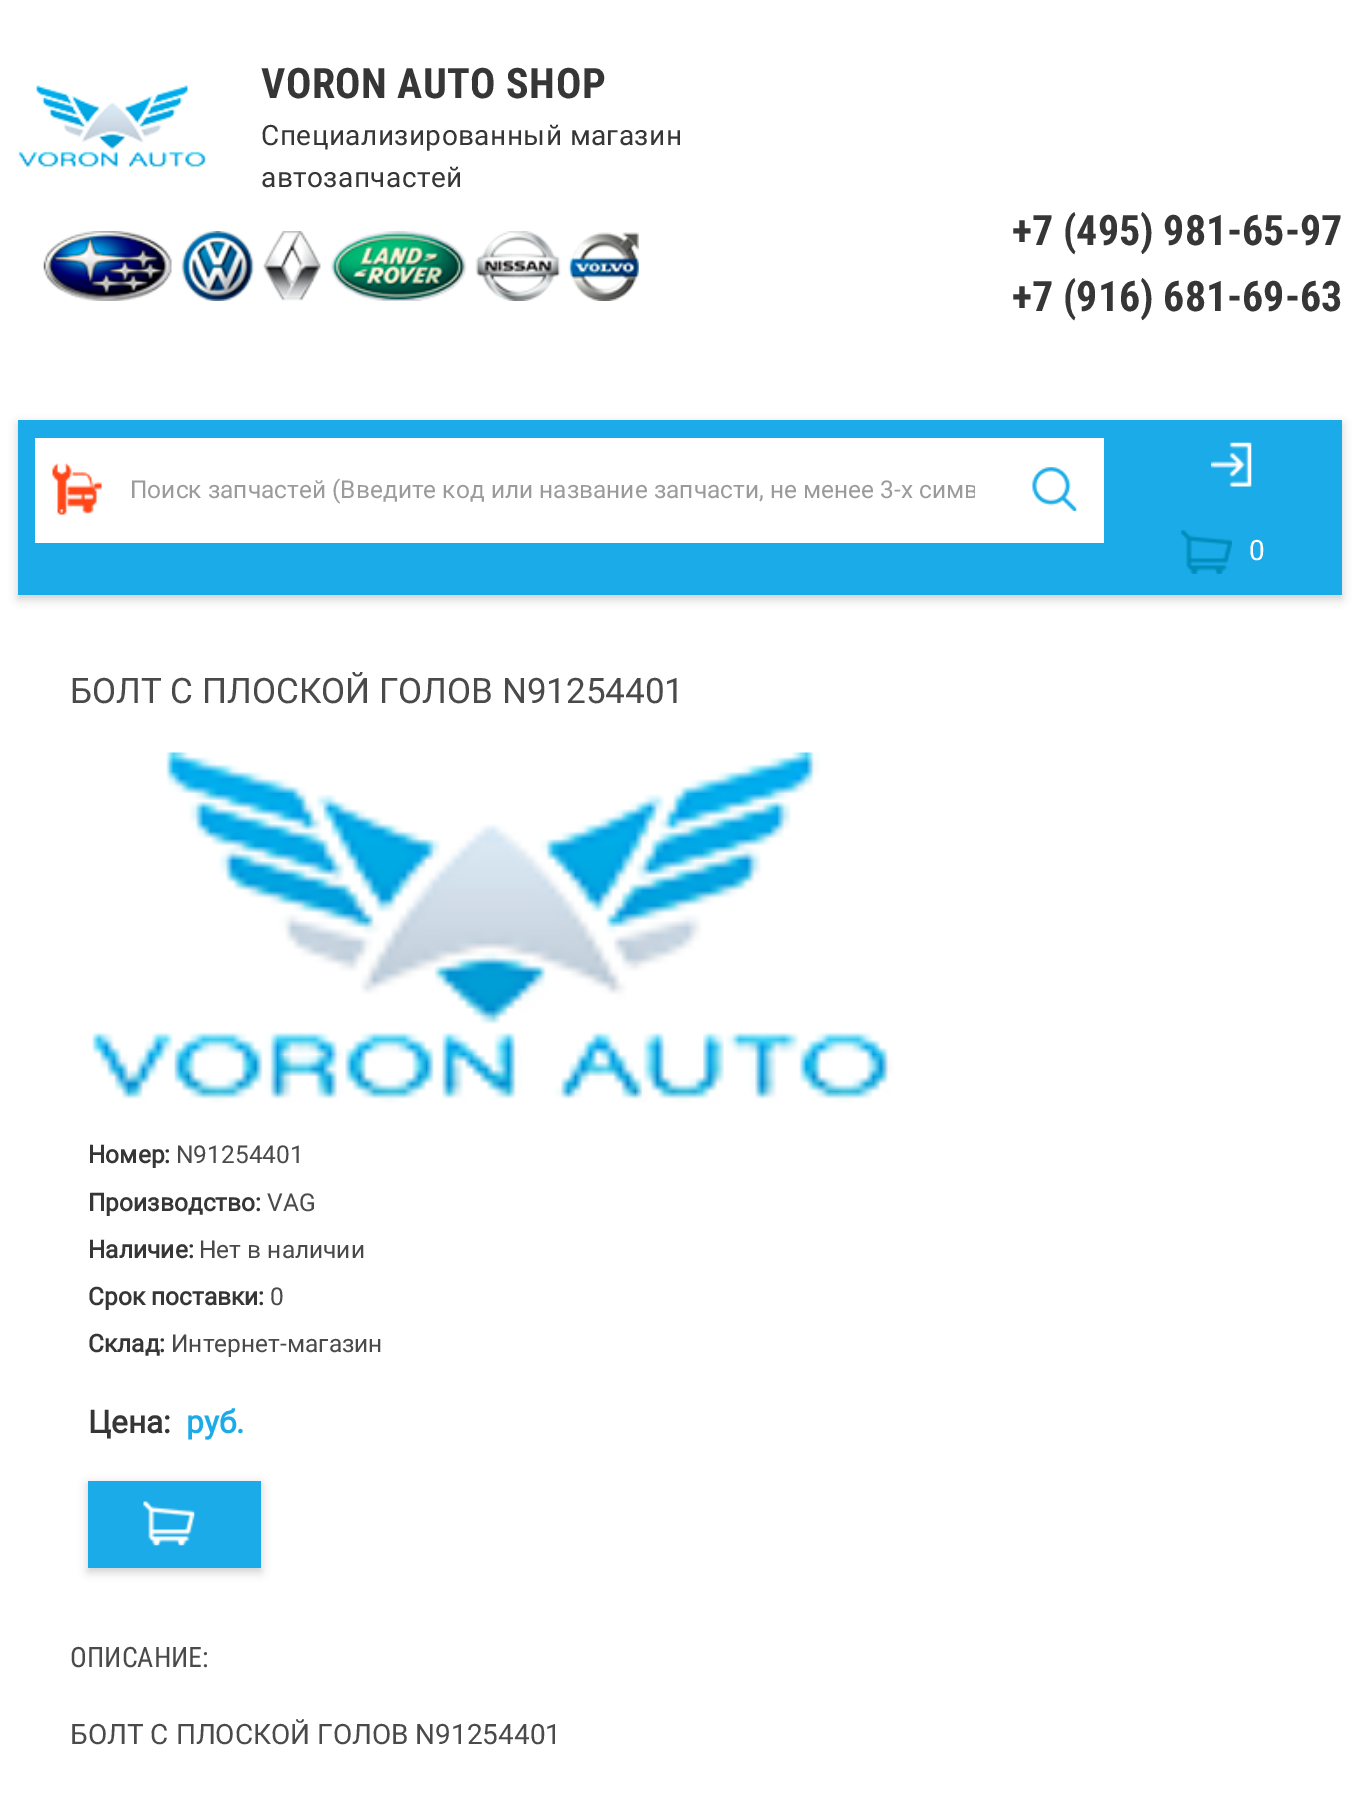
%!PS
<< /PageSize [1359 1803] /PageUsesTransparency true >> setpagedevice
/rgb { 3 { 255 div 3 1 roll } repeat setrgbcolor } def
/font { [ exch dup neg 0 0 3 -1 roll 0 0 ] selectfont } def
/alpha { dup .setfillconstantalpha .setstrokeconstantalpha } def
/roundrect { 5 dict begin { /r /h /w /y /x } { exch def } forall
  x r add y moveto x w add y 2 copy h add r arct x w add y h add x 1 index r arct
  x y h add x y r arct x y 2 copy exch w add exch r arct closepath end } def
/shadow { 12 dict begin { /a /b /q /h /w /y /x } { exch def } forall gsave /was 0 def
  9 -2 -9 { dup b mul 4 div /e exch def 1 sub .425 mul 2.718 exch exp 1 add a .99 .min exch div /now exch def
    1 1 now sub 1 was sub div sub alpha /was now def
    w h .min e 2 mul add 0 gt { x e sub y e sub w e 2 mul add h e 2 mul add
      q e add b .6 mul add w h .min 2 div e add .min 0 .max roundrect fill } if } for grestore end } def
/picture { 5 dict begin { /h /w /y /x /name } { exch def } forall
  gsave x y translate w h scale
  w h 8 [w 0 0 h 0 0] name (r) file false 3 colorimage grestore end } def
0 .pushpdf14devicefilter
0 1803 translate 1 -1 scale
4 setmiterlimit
255 255 255 rgb
0 0 1359 1803 rectfill
(img/1.rgb) 18 85 189 83 picture
(img/2.rgb) 43 231 596 70 picture
0 0 0 rgb
18 424 1324 175 0 4.5 0.19 shadow
28 171 233 rgb
18 420 1324 175 rectfill
255 255 255 rgb
35 438 1069 105 rectfill
(img/3.rgb) 52 463 50 52 picture
(img/4.rgb) 1032 467 45 44 picture
(img/5.rgb) 1211 442 41 45 picture
(img/6.rgb) 1181 530 51 44 picture
(img/7.rgb) 92 752 801 351 picture
0 0 0 rgb
88 1484 173 88 0 4.5 0.19 shadow
28 171 233 rgb
88 1481 173 87 rectfill
(img/8.rgb) 143 1501 52 45 picture
/RobotoCondensed-Bold 42 font
54 54 54 rgb
261 98 moveto 0.45 0 (VORON AUTO SHOP) ashow
/Roboto-Regular 28 font
261 145 moveto 0.45 0 (Специализированный магазин) ashow
261 187 moveto 0.45 0 (автозапчастей) ashow
/RobotoCondensed-Bold 42 font
1012 245 moveto (+7 \(495\) 981-65-97) show
1012 311 moveto (+7 \(916\) 681-69-63) show
gsave
130 476 845 28 rectclip
/Roboto-Regular 24.5 font
155 155 155 rgb
130 498 moveto (Поиск запчастей \(Введите код или название запчасти, не менее 3-х симв) show
grestore
/Roboto-Regular 28 font
255 255 255 rgb
1249 560 moveto (0) show
/Roboto-Regular 35 font
74 74 74 rgb
70 703 moveto (БОЛТ С ПЛОСКОЙ ГОЛОВ N91254401) show
/Roboto-Bold 24.5 font
54 54 54 rgb
88 1163 moveto (Номер:) show
/Roboto-Regular 24.5 font
74 74 74 rgb
176 1163 moveto (N91254401) show
/Roboto-Bold 24.5 font
54 54 54 rgb
88 1211 moveto (Производство:) show
/Roboto-Regular 24.5 font
74 74 74 rgb
267 1211 moveto (VAG) show
/Roboto-Bold 24.5 font
54 54 54 rgb
88 1258 moveto (Наличие:) show
/Roboto-Regular 24.5 font
74 74 74 rgb
199 1258 moveto (Нет в наличии) show
/Roboto-Bold 24.5 font
54 54 54 rgb
88 1305 moveto (Срок поставки:) show
/Roboto-Regular 24.5 font
74 74 74 rgb
270 1305 moveto (0) show
/Roboto-Bold 24.5 font
54 54 54 rgb
88 1352 moveto (Склад:) show
/Roboto-Regular 24.5 font
74 74 74 rgb
171 1352 moveto (Интернет-магазин) show
/Roboto-Bold 31.5 font
54 54 54 rgb
88 1433 moveto (Цена:) show
28 171 233 rgb
186 1433 moveto (руб.) show
/RobotoCondensed-Regular 28 font
74 74 74 rgb
70 1667 moveto (ОПИСАНИЕ:) show
/Roboto-Regular 28 font
70 1744 moveto (БОЛТ С ПЛОСКОЙ ГОЛОВ N91254401) show
.poppdf14devicefilter showpage
